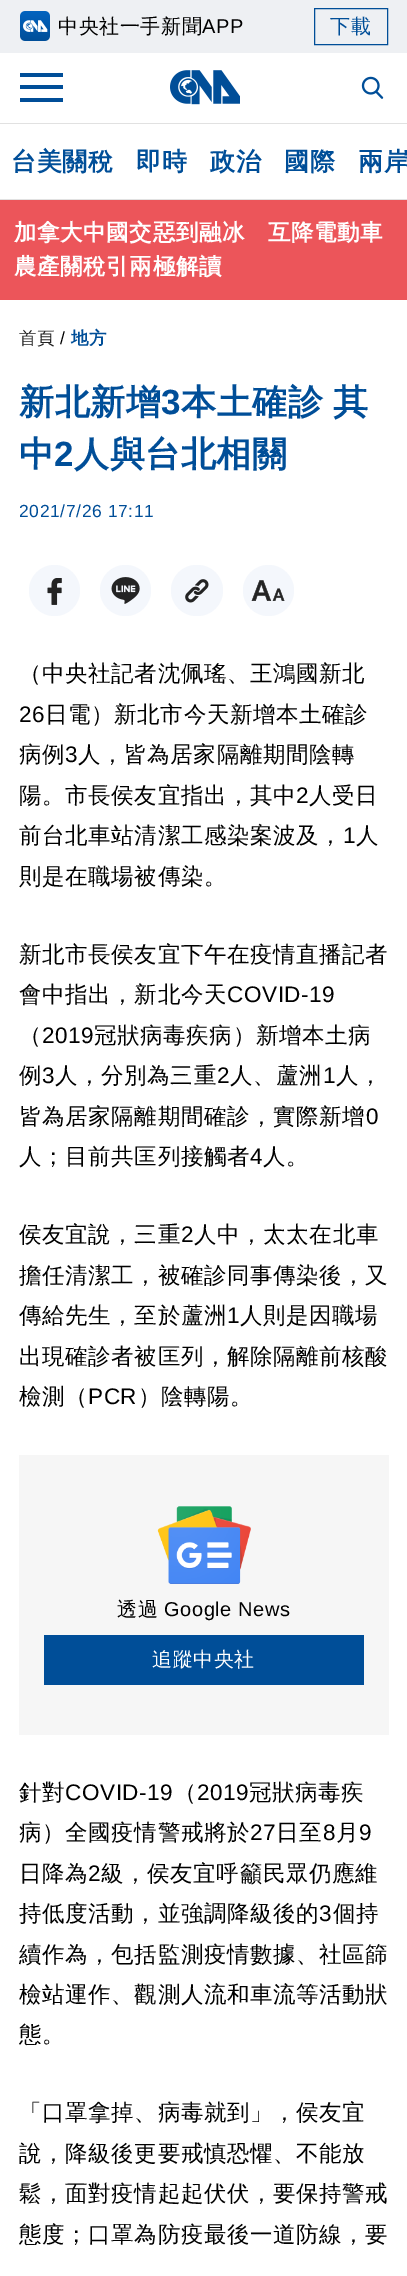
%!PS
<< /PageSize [407 2276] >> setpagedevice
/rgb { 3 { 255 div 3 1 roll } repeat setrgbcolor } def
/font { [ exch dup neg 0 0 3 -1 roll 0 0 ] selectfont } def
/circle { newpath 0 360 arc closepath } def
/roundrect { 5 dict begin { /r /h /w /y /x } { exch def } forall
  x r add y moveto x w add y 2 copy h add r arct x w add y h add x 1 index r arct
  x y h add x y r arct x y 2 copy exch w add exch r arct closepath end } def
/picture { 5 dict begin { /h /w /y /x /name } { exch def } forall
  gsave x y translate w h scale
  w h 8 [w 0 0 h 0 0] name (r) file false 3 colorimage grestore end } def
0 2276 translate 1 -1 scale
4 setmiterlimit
255 255 255 rgb
0 0 407 2276 rectfill
238 240 243 rgb
0 0 407 53 rectfill
(img/1.rgb) 20 11 30 30 picture
0 78 152 rgb
314.5 8.5 73 36 rectstroke
[
  [20 73 43 4 0 78 152]
  [20 85 43 4 0 78 152]
  [20 98 43 4 0 78 152]
] { aload pop rgb rectfill } forall
(img/2.rgb) 170 70 70 35 picture
(img/3.rgb) 361 76 23 23 picture
[
  [0 123 407 1 225 225 225]
  [0 199 407 1 225 225 225]
  [0 200 407 100 236 85 90]
] { aload pop rgb rectfill } forall
244 247 252 rgb
54.5 590.5 25.5 circle fill
(img/4.rgb) 47 578 15 27 picture
125.5 590.5 25.5 circle fill
(img/5.rgb) 111 577 29 27 picture
171 565 52 51 25.5 roundrect fill
(img/6.rgb) 185 579 24 24 picture
268.5 590.5 25.5 circle fill
(img/7.rgb) 251 580 34 21 picture
246 246 246 rgb
19 1455 370 280 rectfill
(img/8.rgb) 157 1506 94 78 picture
0 78 152 rgb
44 1635 320 50 rectfill
/WenQuanYiZenHei-Medium 20 font
0 0 0 rgb
58 33 moveto 0.6 0 (中央社一手新聞) ashow
/LiberationSans-Regular 20 font
202 33 moveto 0.6 0 (APP) ashow
/WenQuanYiZenHei-Medium 20 font
0 78 152 rgb
330 33 moveto 0.6 0 (下載) ashow
/WenQuanYiZenHei-Bold 25 font
11 170 moveto 0.6 0 (台美關稅) ashow
136 170 moveto 0.6 0 (即時) ashow
210 170 moveto 0.6 0 (政治) ashow
284 170 moveto 0.6 0 (國際) ashow
358 170 moveto 0.6 0 (兩岸) ashow
/WenQuanYiZenHei-Bold 22.5 font
255 255 255 rgb
14 240 moveto 0.6 0 (加拿大中國交惡到融冰　互降電動車) ashow
14 274 moveto 0.6 0 (農產關稅引兩極解讀) ashow
/WenQuanYiZenHei-Medium 17.5 font
35 35 35 rgb
19 344 moveto 0.6 0 (首頁) ashow
/LiberationSans-Regular 17.5 font
0 0 0 rgb
60 344 moveto 0.6 0 (/) ashow
/WenQuanYiZenHei-Bold 17.5 font
0 78 152 rgb
71 344 moveto 0.6 0 (地方) ashow
/WenQuanYiZenHei-Bold 35 font
19 414 moveto 0.6 0 (新北新增) ashow
/LiberationSans-Bold 35 font
161 414 moveto 0.6 0 (3) ashow
/WenQuanYiZenHei-Bold 35 font
181 414 moveto -1 0 32 0.6 0 (本土確診 其) awidthshow
19 466 moveto 0.6 0 (中) ashow
/LiberationSans-Bold 35 font
54 466 moveto 0.6 0 (2) ashow
/WenQuanYiZenHei-Bold 35 font
74 466 moveto 0.6 0 (人與台北相關) ashow
/LiberationSans-Regular 17.5 font
19 517 moveto 0.6 0 (2021/7/26 17:11) ashow
/WenQuanYiZenHei-Medium 22.5 font
0 0 0 rgb
19 681 moveto 0.6 0 (（中央社記者沈佩瑤、王鴻國新北) ashow
/LiberationSans-Regular 22.5 font
19 722 moveto 0.6 0 (26) ashow
/WenQuanYiZenHei-Medium 22.5 font
45 722 moveto 0.6 0 (日電）新北市今天新增本土確診) ashow
19 762 moveto 0.6 0 (病例) ashow
/LiberationSans-Regular 22.5 font
65 762 moveto 0.6 0 (3) ashow
/WenQuanYiZenHei-Medium 22.5 font
78 762 moveto 0.6 0 (人，皆為居家隔離期間陰轉) ashow
19 803 moveto 0.6 0 (陽。市長侯友宜指出，其中) ashow
/LiberationSans-Regular 22.5 font
296 803 moveto 0.6 0 (2) ashow
/WenQuanYiZenHei-Medium 22.5 font
309 803 moveto 0.6 0 (人受日) ashow
19 843 moveto 0.6 0 (前台北車站清潔工感染案波及，) ashow
/LiberationSans-Regular 22.5 font
343 843 moveto 0.6 0 (1) ashow
/WenQuanYiZenHei-Medium 22.5 font
356 843 moveto 0.6 0 (人) ashow
19 884 moveto 0.6 0 (則是在職場被傳染。) ashow
19 962 moveto 0.6 0 (新北市長侯友宜下午在疫情直播記者) ashow
19 1002 moveto 0.6 0 (會中指出，新北今天) ashow
/LiberationSans-Regular 22.5 font
227 1002 moveto 0.6 0 (COVID-19) ashow
/WenQuanYiZenHei-Medium 22.5 font
19 1043 moveto 0.6 0 (（) ashow
/LiberationSans-Regular 22.5 font
42 1043 moveto 0.6 0 (2019) ashow
/WenQuanYiZenHei-Medium 22.5 font
94 1043 moveto 0.6 0 (冠狀病毒疾病）新增本土病) ashow
19 1083 moveto 0.6 0 (例) ashow
/LiberationSans-Regular 22.5 font
42 1083 moveto 0.6 0 (3) ashow
/WenQuanYiZenHei-Medium 22.5 font
55 1083 moveto 0.6 0 (人，分別為三重) ashow
/LiberationSans-Regular 22.5 font
217 1083 moveto 0.6 0 (2) ashow
/WenQuanYiZenHei-Medium 22.5 font
230 1083 moveto 0.6 0 (人、蘆洲) ashow
/LiberationSans-Regular 22.5 font
323 1083 moveto 0.6 0 (1) ashow
/WenQuanYiZenHei-Medium 22.5 font
336 1083 moveto 0.6 0 (人，) ashow
19 1124 moveto 0.6 0 (皆為居家隔離期間確診，實際新增) ashow
/LiberationSans-Regular 22.5 font
366 1124 moveto 0.6 0 (0) ashow
/WenQuanYiZenHei-Medium 22.5 font
19 1164 moveto 0.6 0 (人；目前共匡列接觸者) ashow
/LiberationSans-Regular 22.5 font
250 1164 moveto 0.6 0 (4) ashow
/WenQuanYiZenHei-Medium 22.5 font
263 1164 moveto 0.6 0 (人。) ashow
19 1242 moveto 0.6 0 (侯友宜說，三重) ashow
/LiberationSans-Regular 22.5 font
181 1242 moveto 0.6 0 (2) ashow
/WenQuanYiZenHei-Medium 22.5 font
194 1242 moveto 0.6 0 (人中，太太在北車) ashow
19 1283 moveto 0.6 0 (擔任清潔工，被確診同事傳染後，又) ashow
19 1323 moveto 0.6 0 (傳給先生，至於蘆洲) ashow
/LiberationSans-Regular 22.5 font
227 1323 moveto 0.6 0 (1) ashow
/WenQuanYiZenHei-Medium 22.5 font
240 1323 moveto 0.6 0 (人則是因職場) ashow
19 1364 moveto 0.6 0 (出現確診者被匡列，解除隔離前核酸) ashow
19 1404 moveto 0.6 0 (檢測（) ashow
/LiberationSans-Regular 22.5 font
88 1404 moveto 0.6 0 (PCR) ashow
/WenQuanYiZenHei-Medium 22.5 font
138 1404 moveto 0.6 0 (）陰轉陽。) ashow
/WenQuanYiZenHei-Medium 20 font
117 1616 moveto 0.6 0 (透過) ashow
/LiberationSans-Regular 20 font
164 1616 moveto 0.6 0 (Google News) ashow
/WenQuanYiZenHei-Medium 20 font
255 255 255 rgb
152 1666 moveto 0.6 0 (追蹤中央社) ashow
/WenQuanYiZenHei-Medium 22.5 font
0 0 0 rgb
19 1800 moveto 0.6 0 (針對) ashow
/LiberationSans-Regular 22.5 font
65 1800 moveto 0.6 0 (COVID-19) ashow
/WenQuanYiZenHei-Medium 22.5 font
174 1800 moveto 0.6 0 (（) ashow
/LiberationSans-Regular 22.5 font
197 1800 moveto 0.6 0 (2019) ashow
/WenQuanYiZenHei-Medium 22.5 font
249 1800 moveto 0.6 0 (冠狀病毒疾) ashow
19 1840 moveto 0.6 0 (病）全國疫情警戒將於) ashow
/LiberationSans-Regular 22.5 font
250 1840 moveto 0.6 0 (27) ashow
/WenQuanYiZenHei-Medium 22.5 font
276 1840 moveto 0.6 0 (日至) ashow
/LiberationSans-Regular 22.5 font
323 1840 moveto 0.6 0 (8) ashow
/WenQuanYiZenHei-Medium 22.5 font
336 1840 moveto 0.6 0 (月) ashow
/LiberationSans-Regular 22.5 font
359 1840 moveto 0.6 0 (9) ashow
/WenQuanYiZenHei-Medium 22.5 font
19 1881 moveto 0.6 0 (日降為) ashow
/LiberationSans-Regular 22.5 font
88 1881 moveto 0.6 0 (2) ashow
/WenQuanYiZenHei-Medium 22.5 font
101 1881 moveto 0.6 0 (級，侯友宜呼籲民眾仍應維) ashow
19 1921 moveto 0.6 0 (持低度活動，並強調降級後的) ashow
/LiberationSans-Regular 22.5 font
319 1921 moveto 0.6 0 (3) ashow
/WenQuanYiZenHei-Medium 22.5 font
333 1921 moveto 0.6 0 (個持) ashow
19 1962 moveto 0.6 0 (續作為，包括監測疫情數據、社區篩) ashow
19 2002 moveto 0.6 0 (檢站運作、觀測人流和車流等活動狀) ashow
19 2042 moveto 0.6 0 (態。) ashow
19 2120 moveto 0.6 0 (「口罩拿掉、病毒就到」，侯友宜) ashow
19 2161 moveto 0.6 0 (說，降級後更要戒慎恐懼、不能放) ashow
19 2201 moveto 0.6 0 (鬆，面對疫情起起伏伏，要保持警戒) ashow
19 2242 moveto 0.6 0 (態度；口罩為防疫最後一道防線，要) ashow
showpage
